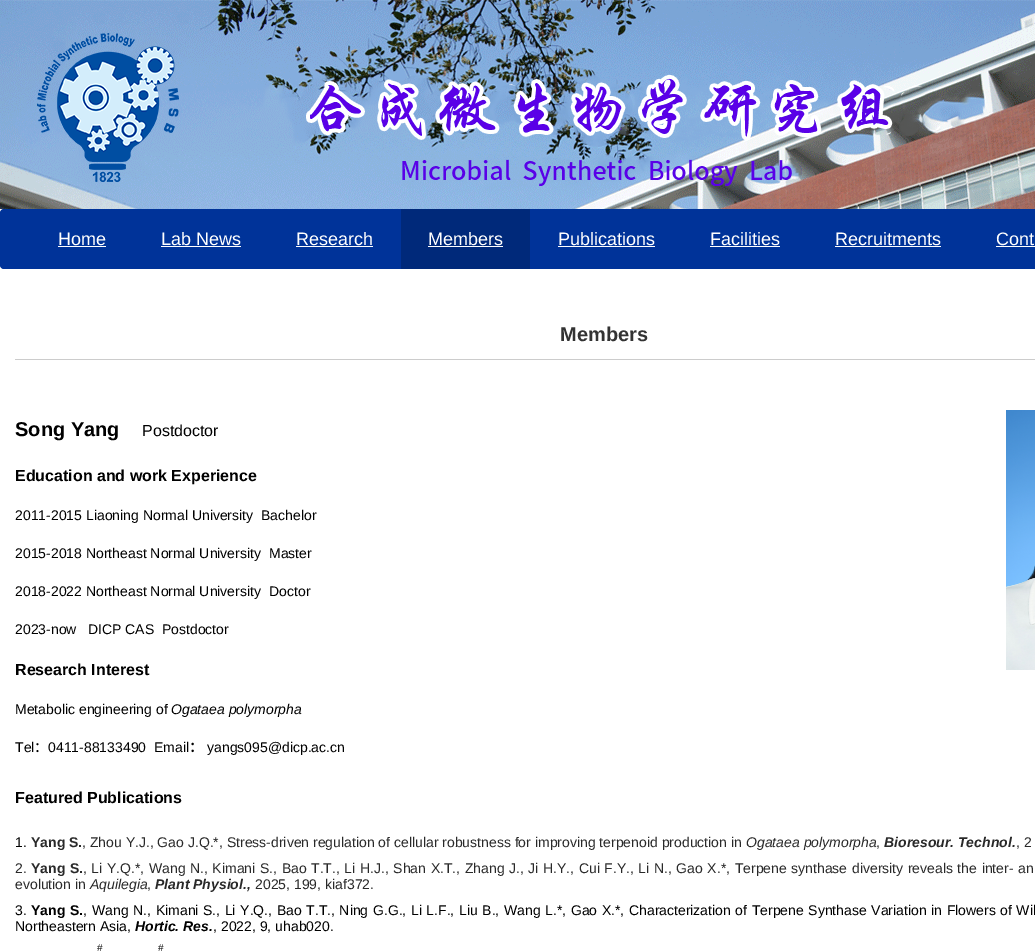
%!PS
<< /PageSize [1035 951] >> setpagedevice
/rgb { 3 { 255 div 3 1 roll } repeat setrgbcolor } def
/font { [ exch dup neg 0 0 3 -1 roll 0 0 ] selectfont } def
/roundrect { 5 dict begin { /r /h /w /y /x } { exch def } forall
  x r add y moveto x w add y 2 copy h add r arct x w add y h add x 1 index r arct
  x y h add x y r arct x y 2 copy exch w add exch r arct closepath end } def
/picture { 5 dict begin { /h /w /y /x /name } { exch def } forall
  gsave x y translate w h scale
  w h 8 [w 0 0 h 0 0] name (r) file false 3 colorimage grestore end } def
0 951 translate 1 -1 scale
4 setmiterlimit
255 255 255 rgb
0 0 1035 951 rectfill
(img/1.rgb) 0 0 1035 209 picture
0 51 153 rgb
0 209 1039 60 4 roundrect fill
[
  [58 246 48 1 255 255 255]
  [161 246 80 1 255 255 255]
  [296 246 77 1 255 255 255]
  [401 209 129 60 0 41 122]
  [428 246 75 1 255 255 255]
  [558 246 97 1 255 255 255]
  [710 246 70 1 255 255 255]
  [835 246 106 1 255 255 255]
  [996 246 39 1 255 255 255]
  [15 359 1020 1 204 204 204]
] { aload pop rgb rectfill } forall
(img/2.rgb) 1006 410 29 260 picture
/LiberationSans-Regular 18 font
255 255 255 rgb
[
  [(Home) 58 245]
  [(Lab News) 161 245]
  [(Research) 296 245]
  [(Members) 428 245]
  [(Publications) 558 245]
  [(Facilities) 710 245]
  [(Recruitments) 835 245]
  [(Cont) 996 245]
] { aload pop moveto show } forall
/LiberationSans-Bold 20 font
51 51 51 rgb
560 341 moveto (Members) show
0 0 0 rgb
15 436 moveto (Song Yang) show
/LiberationSans-Regular 16 font
142 436 moveto (Postdoctor) show
/LiberationSans-Bold 16 font
15 481 moveto (Education and work Experience) show
/LiberationSans-Regular 14 font
[
  [(2011-2015 Liaoning Normal University) 15 520]
  [(Bachelor) 261 520]
  [(2015-2018 Northeast Normal University) 15 558]
  [(Master) 269 558]
  [(2018-2022 Northeast Normal University) 15 596]
  [(Doctor) 269 596]
  [(2023-now) 15 634]
  [(DICP CAS  Postdoctor) 88 634]
] { aload pop moveto show } forall
/LiberationSans-Bold 16 font
15 675 moveto (Research Interest) show
/LiberationSans-Regular 14 font
15 714 moveto (Metabolic engineering of) show
/LiberationSans-Italic 14 font
171 714 moveto (Ogataea polymorpha) show
/LiberationSans-Regular 14 font
15 752 moveto (Tel) show
/NotoSansCJKSC-Regular 14 font
34 752 moveto (：) show
/LiberationSans-Regular 14 font
48 752 moveto (0411-88133490) show
154 752 moveto (Email) show
/NotoSansCJKSC-Bold 14 font
189 752 moveto (：) show
/LiberationSans-Regular 14 font
207 752 moveto (yangs095@dicp.ac.cn) show
/LiberationSans-Bold 16 font
15 803 moveto (Featured Publications) show
/LiberationSans-Regular 14 font
15 847 moveto (1.) show
/LiberationSans-Bold 14 font
41 41 41 rgb
31 847 moveto (Yang S.) show
/LiberationSans-Regular 14 font
82 847 moveto (, Zhou Y.J., Gao J.Q.*, Stress-driven regulation of cellular robustness for improving terpenoid production in) show
/LiberationSans-Italic 14 font
746 847 moveto (Ogataea polymorpha) show
/LiberationSans-Regular 14 font
876 847 moveto (,) show
/LiberationSans-BoldItalic 14 font
884 847 moveto (Bioresour. Technol.) show
/LiberationSans-Regular 14 font
1016 847 moveto (, 2) show
15 873 moveto (2.) show
/LiberationSans-Bold 14 font
31 873 moveto 0.7 0 32 (Yang S.) widthshow
/LiberationSans-Regular 14 font
83 873 moveto 0.7 0 32 (, Li Y.Q.*, Wang N., Kimani S., Bao T.T., Li H.J., Shan X.T., Zhang J., Ji H.Y., Cui F.Y., Li N., Gao X.*, Terpene synthase diversity reveals the inter- an) widthshow
15 889 moveto (evolution in) show
/LiberationSans-Italic 14 font
90 889 moveto (Aquilegia) show
/LiberationSans-Regular 14 font
147 889 moveto (,) show
/LiberationSans-BoldItalic 14 font
155 889 moveto (Plant Physiol.,) show
/LiberationSans-Regular 14 font
255 889 moveto (2025, 199, kiaf372.) show
0 0 0 rgb
15 915 moveto (3.) show
/LiberationSans-Bold 14 font
31 915 moveto 0.7 0 32 (Yang S.) widthshow
/LiberationSans-Regular 14 font
83 915 moveto (,) show
92 915 moveto 0.7 0 32 (Wang N., Kimani S., Li Y.Q., Bao T.T., Ning G.G., Li L.F., Liu B., Wang L.*, Gao X.*, Characterization of Terpene Synthase Variation in Flowers of Wil) widthshow
15 931 moveto (Northeastern Asia,) show
/LiberationSans-BoldItalic 14 font
135 931 moveto (Hortic. Res.) show
/LiberationSans-Regular 14 font
213 931 moveto (, 2022, 9, uhab020.) show
/LiberationSans-Regular 10 font
97 951 moveto (#) show
158 951 moveto (#) show
showpage
